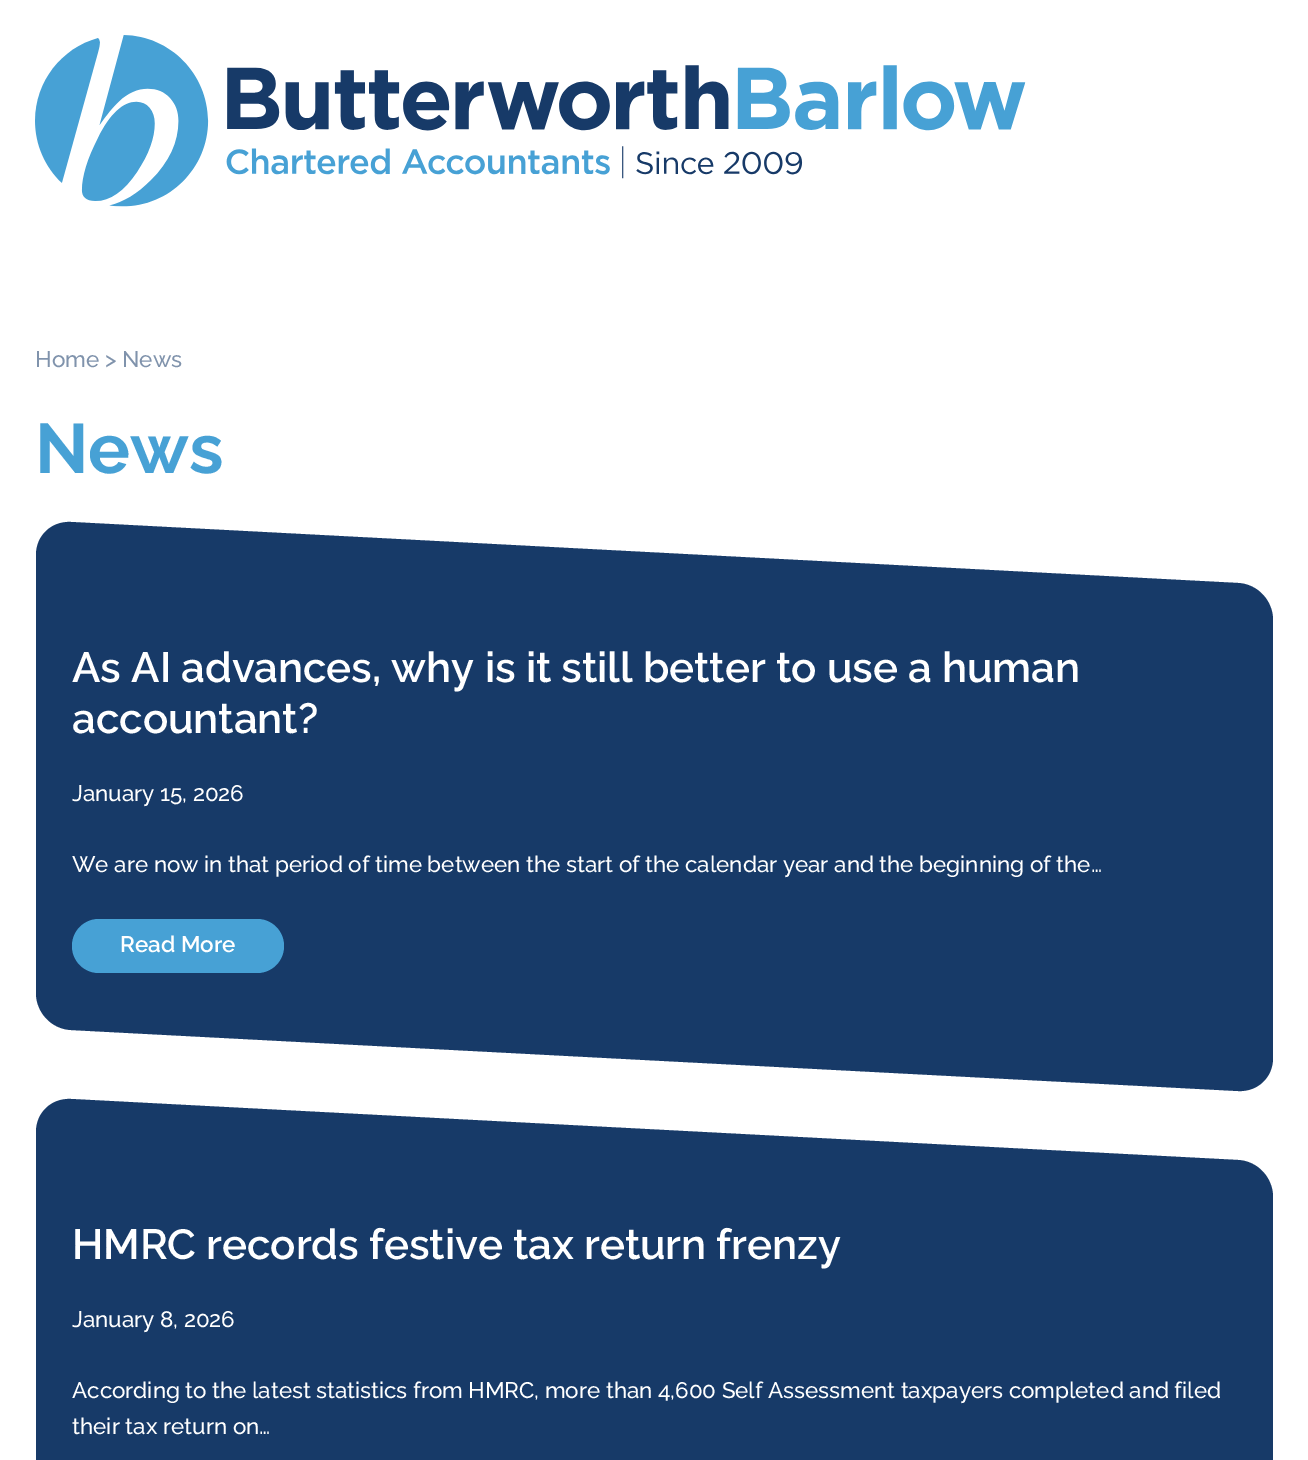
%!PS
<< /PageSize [1308 1460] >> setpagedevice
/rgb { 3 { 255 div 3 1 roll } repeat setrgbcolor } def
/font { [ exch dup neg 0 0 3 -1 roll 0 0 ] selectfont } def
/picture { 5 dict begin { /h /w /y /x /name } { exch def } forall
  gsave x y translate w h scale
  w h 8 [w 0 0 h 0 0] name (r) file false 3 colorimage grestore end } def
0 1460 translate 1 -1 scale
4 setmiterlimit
255 255 255 rgb
0 0 1308 1460 rectfill
(img/1.rgb) 35 35 991 172 picture
23 58 104 rgb
71 522 moveto 1238 583 lineto 1258 584 1273 601 1273 620 curveto 1273 1058 lineto 1273 1077 1258 1092 1238 1091 curveto 71 1030 lineto 51 1029 36 1012 36 993 curveto 36 555 lineto 36 536 51 521 71 522 curveto closepath fill
71 161 213 rgb
99 919 moveto 257 919 lineto 272 919 284 931 284 946 curveto 284 961 272 973 257 973 curveto 99 973 lineto 84 973 72 961 72 946 curveto 72 931 84 919 99 919 curveto closepath fill
23 58 104 rgb
71 1099 moveto 1238 1160 lineto 1258 1161 1273 1178 1273 1197 curveto 1273 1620 lineto 1273 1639 1258 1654 1238 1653 curveto 71 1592 lineto 51 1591 36 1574 36 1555 curveto 36 1132 lineto 36 1113 51 1098 71 1099 curveto closepath fill
/Raleway-Medium 22.5 font
128 147 172 rgb
35 367 moveto (Home > News) show
/Raleway-Bold 70 font
71 161 213 rgb
35 473 moveto (News) show
/Raleway-SemiBold 42.1 font
255 255 255 rgb
72 682 moveto -0.1 0 (As AI advances, why is it still better to use a human) ashow
72 733 moveto -0.1 0 (accountant?) ashow
/Raleway-Medium 22.45 font
72 801 moveto -0.06 0 (January 15, 2026) ashow
72 872 moveto -0.06 0 (We are now in that period of time between the start of the calendar year and the beginning of the…) ashow
/Raleway-SemiBold 22.45 font
120 952 moveto (Read More) show
/Raleway-SemiBold 42.1 font
72 1259 moveto -0.1 0 (HMRC records festive tax return frenzy) ashow
/Raleway-Medium 22.45 font
72 1327 moveto -0.06 0 (January 8, 2026) ashow
72 1398 moveto -0.06 0 (According to the latest statistics from HMRC, more than 4,600 Self Assessment taxpayers completed and filed) ashow
72 1434 moveto (their tax return on…) show
showpage
